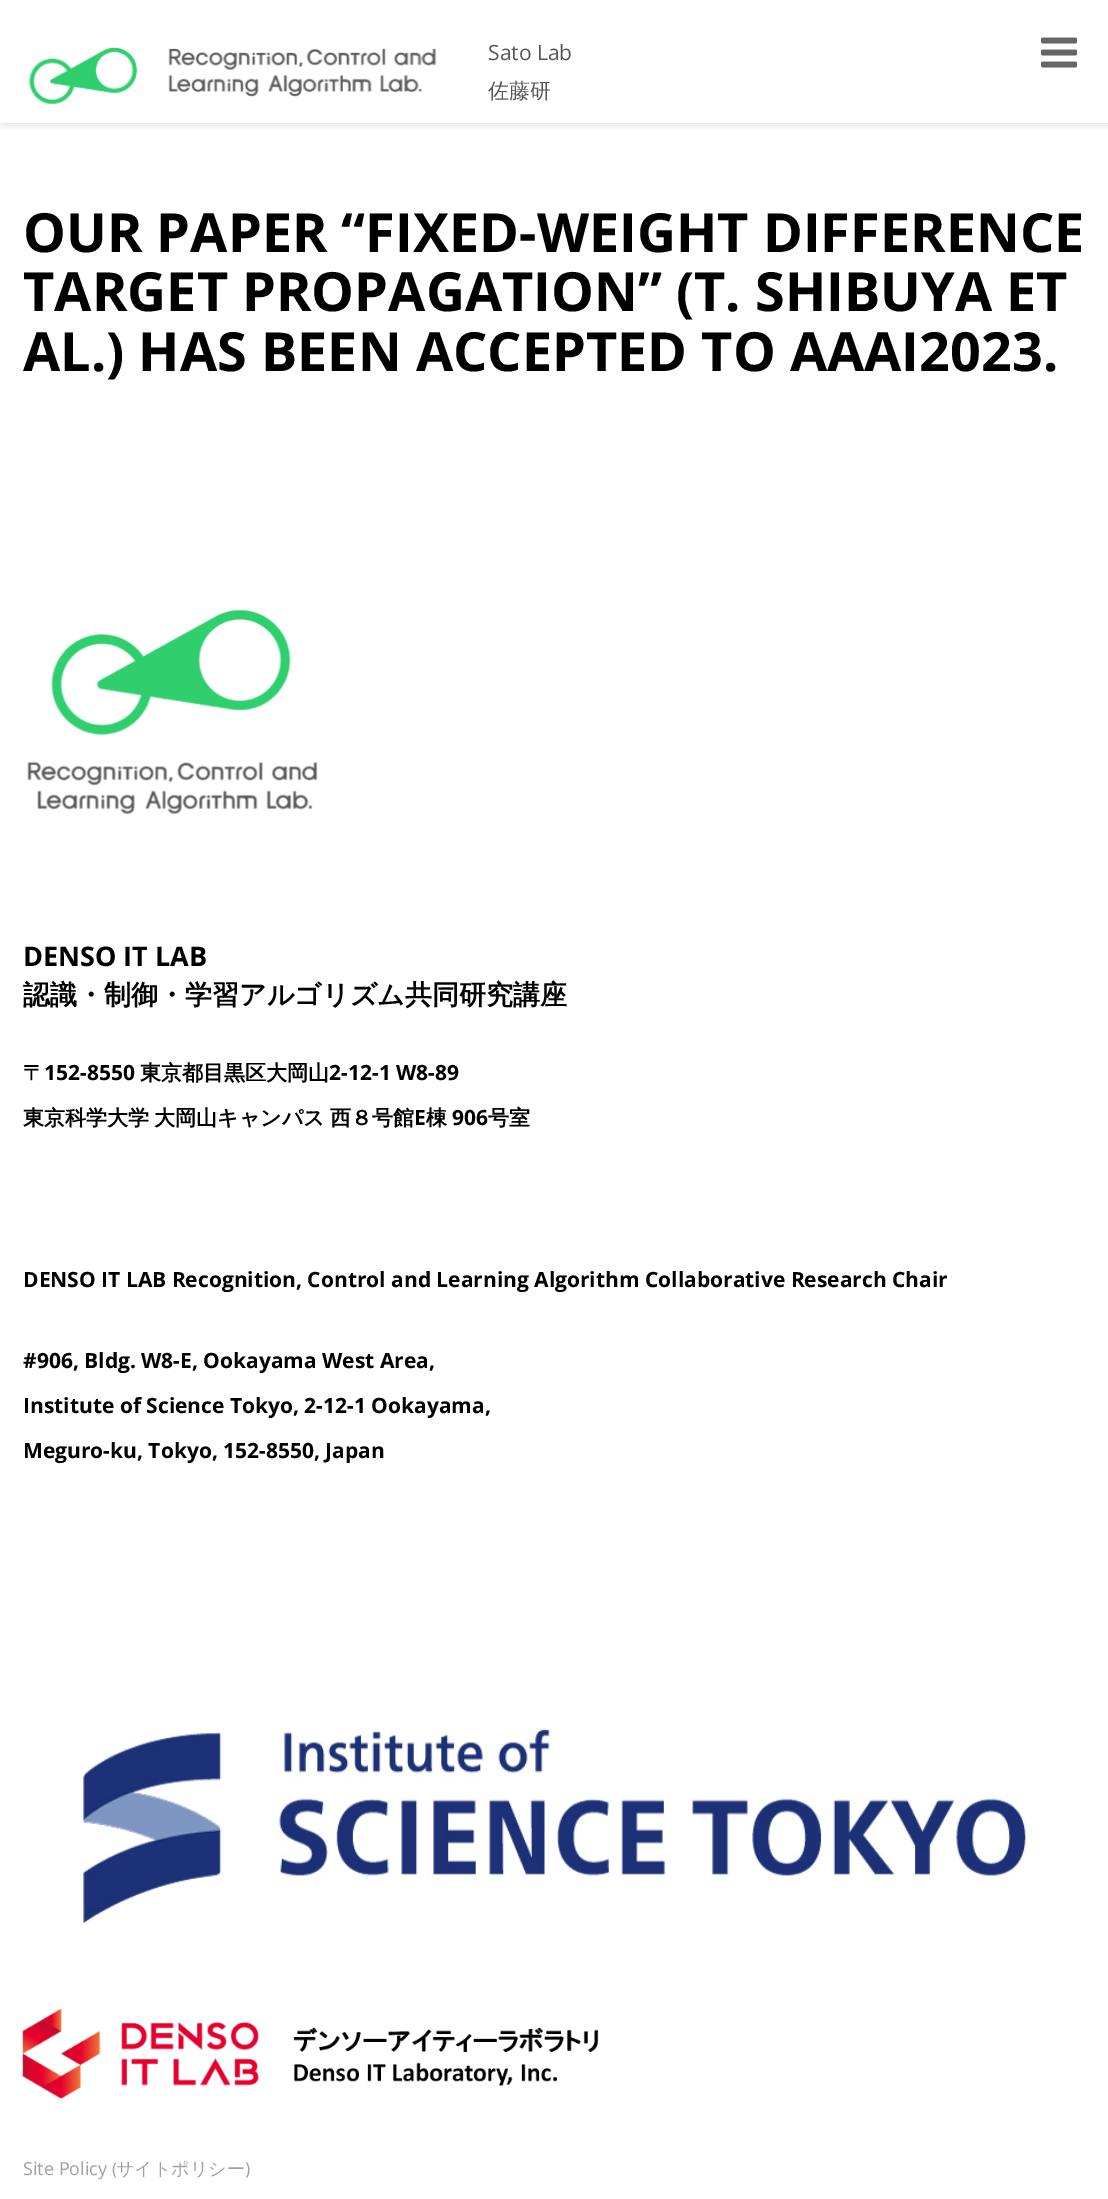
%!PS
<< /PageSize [1108 2199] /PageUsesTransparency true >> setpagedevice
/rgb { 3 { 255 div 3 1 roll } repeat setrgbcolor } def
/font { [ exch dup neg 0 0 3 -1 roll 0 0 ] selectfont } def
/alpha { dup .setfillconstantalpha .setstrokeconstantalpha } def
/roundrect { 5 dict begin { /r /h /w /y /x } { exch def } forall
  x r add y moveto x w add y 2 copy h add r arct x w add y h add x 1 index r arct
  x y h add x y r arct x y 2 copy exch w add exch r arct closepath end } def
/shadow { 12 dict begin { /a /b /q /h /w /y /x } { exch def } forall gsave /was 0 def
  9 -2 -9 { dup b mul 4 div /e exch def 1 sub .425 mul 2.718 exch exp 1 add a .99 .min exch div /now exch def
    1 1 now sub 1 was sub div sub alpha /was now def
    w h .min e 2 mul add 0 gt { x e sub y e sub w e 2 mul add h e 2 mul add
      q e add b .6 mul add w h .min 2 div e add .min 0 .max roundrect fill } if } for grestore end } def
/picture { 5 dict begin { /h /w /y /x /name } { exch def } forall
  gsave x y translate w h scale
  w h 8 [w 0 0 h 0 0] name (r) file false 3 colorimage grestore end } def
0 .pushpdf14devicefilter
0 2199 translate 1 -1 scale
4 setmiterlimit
255 255 255 rgb
0 0 1108 2199 rectfill
gsave
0 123 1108 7 rectclip
100 100 100 rgb
2 2 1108 123 0 4 0.2 shadow
grestore
(img/1.rgb) 29 47 408 58 picture
(img/2.rgb) 1041 37 36 31 picture
(img/3.rgb) 27 609 291 206 picture
(img/4.rgb) 81 1729 945 195 picture
(img/5.rgb) 22 2008 577 91 picture
/OpenSans-Regular 21 font
85 85 85 rgb
488 60 moveto (Sato Lab) show
/WenQuanYiZenHei-Medium 21 font
488 98 moveto (佐藤研) show
/OpenSans-Bold 54 font
0 0 0 rgb
[
  [(OUR PAPER “FIXED-WEIGHT DIFFERENCE) 23 252]
  [(TARGET PROPAGATION” \(T. SHIBUYA ET) 23 311]
  [(AL.\) HAS BEEN ACCEPTED TO AAAI2023.) 23 371]
] { aload pop moveto show } forall
/OpenSans-Bold 27 font
23 966 moveto (DENSO IT LAB) show
/WenQuanYiZenHei-Bold 27 font
23 1004 moveto (認識・制御・学習アルゴリズム共同研究講座) show
/WenQuanYiZenHei-Bold 21 font
23 1080 moveto (〒) show
/OpenSans-Bold 21 font
44 1080 moveto (152-8550) show
/WenQuanYiZenHei-Bold 21 font
140 1080 moveto (東京都目黒区大岡山) show
/OpenSans-Bold 21 font
329 1080 moveto (2-12-1 W8-89) show
/WenQuanYiZenHei-Bold 21 font
23 1125 moveto -1 0 32 (東京科学大学 大岡山キャンパス 西８号館) widthshow
/OpenSans-Bold 21 font
414 1125 moveto (E) show
/WenQuanYiZenHei-Bold 21 font
426 1125 moveto (棟) show
/OpenSans-Bold 21 font
452 1125 moveto (906) show
/WenQuanYiZenHei-Bold 21 font
488 1125 moveto (号室) show
/OpenSans-Bold 21 font
[
  [(DENSO IT LAB Recognition, Control and Learning Algorithm Collaborative Research Chair) 23 1287]
  [(#906, Bldg. W8-E, Ookayama West Area,) 23 1368]
  [(Institute of Science Tokyo, 2-12-1 Ookayama,) 23 1413]
  [(Meguro-ku, Tokyo, 152-8550, Japan) 23 1458]
] { aload pop moveto show } forall
/OpenSans-Regular 18 font
160 160 160 rgb
23 2175 moveto (Site Policy \() show
/WenQuanYiZenHei-Medium 18 font
116 2175 moveto (サイトポリシー) show
/OpenSans-Regular 18 font
245 2175 moveto (\)) show
.poppdf14devicefilter showpage
